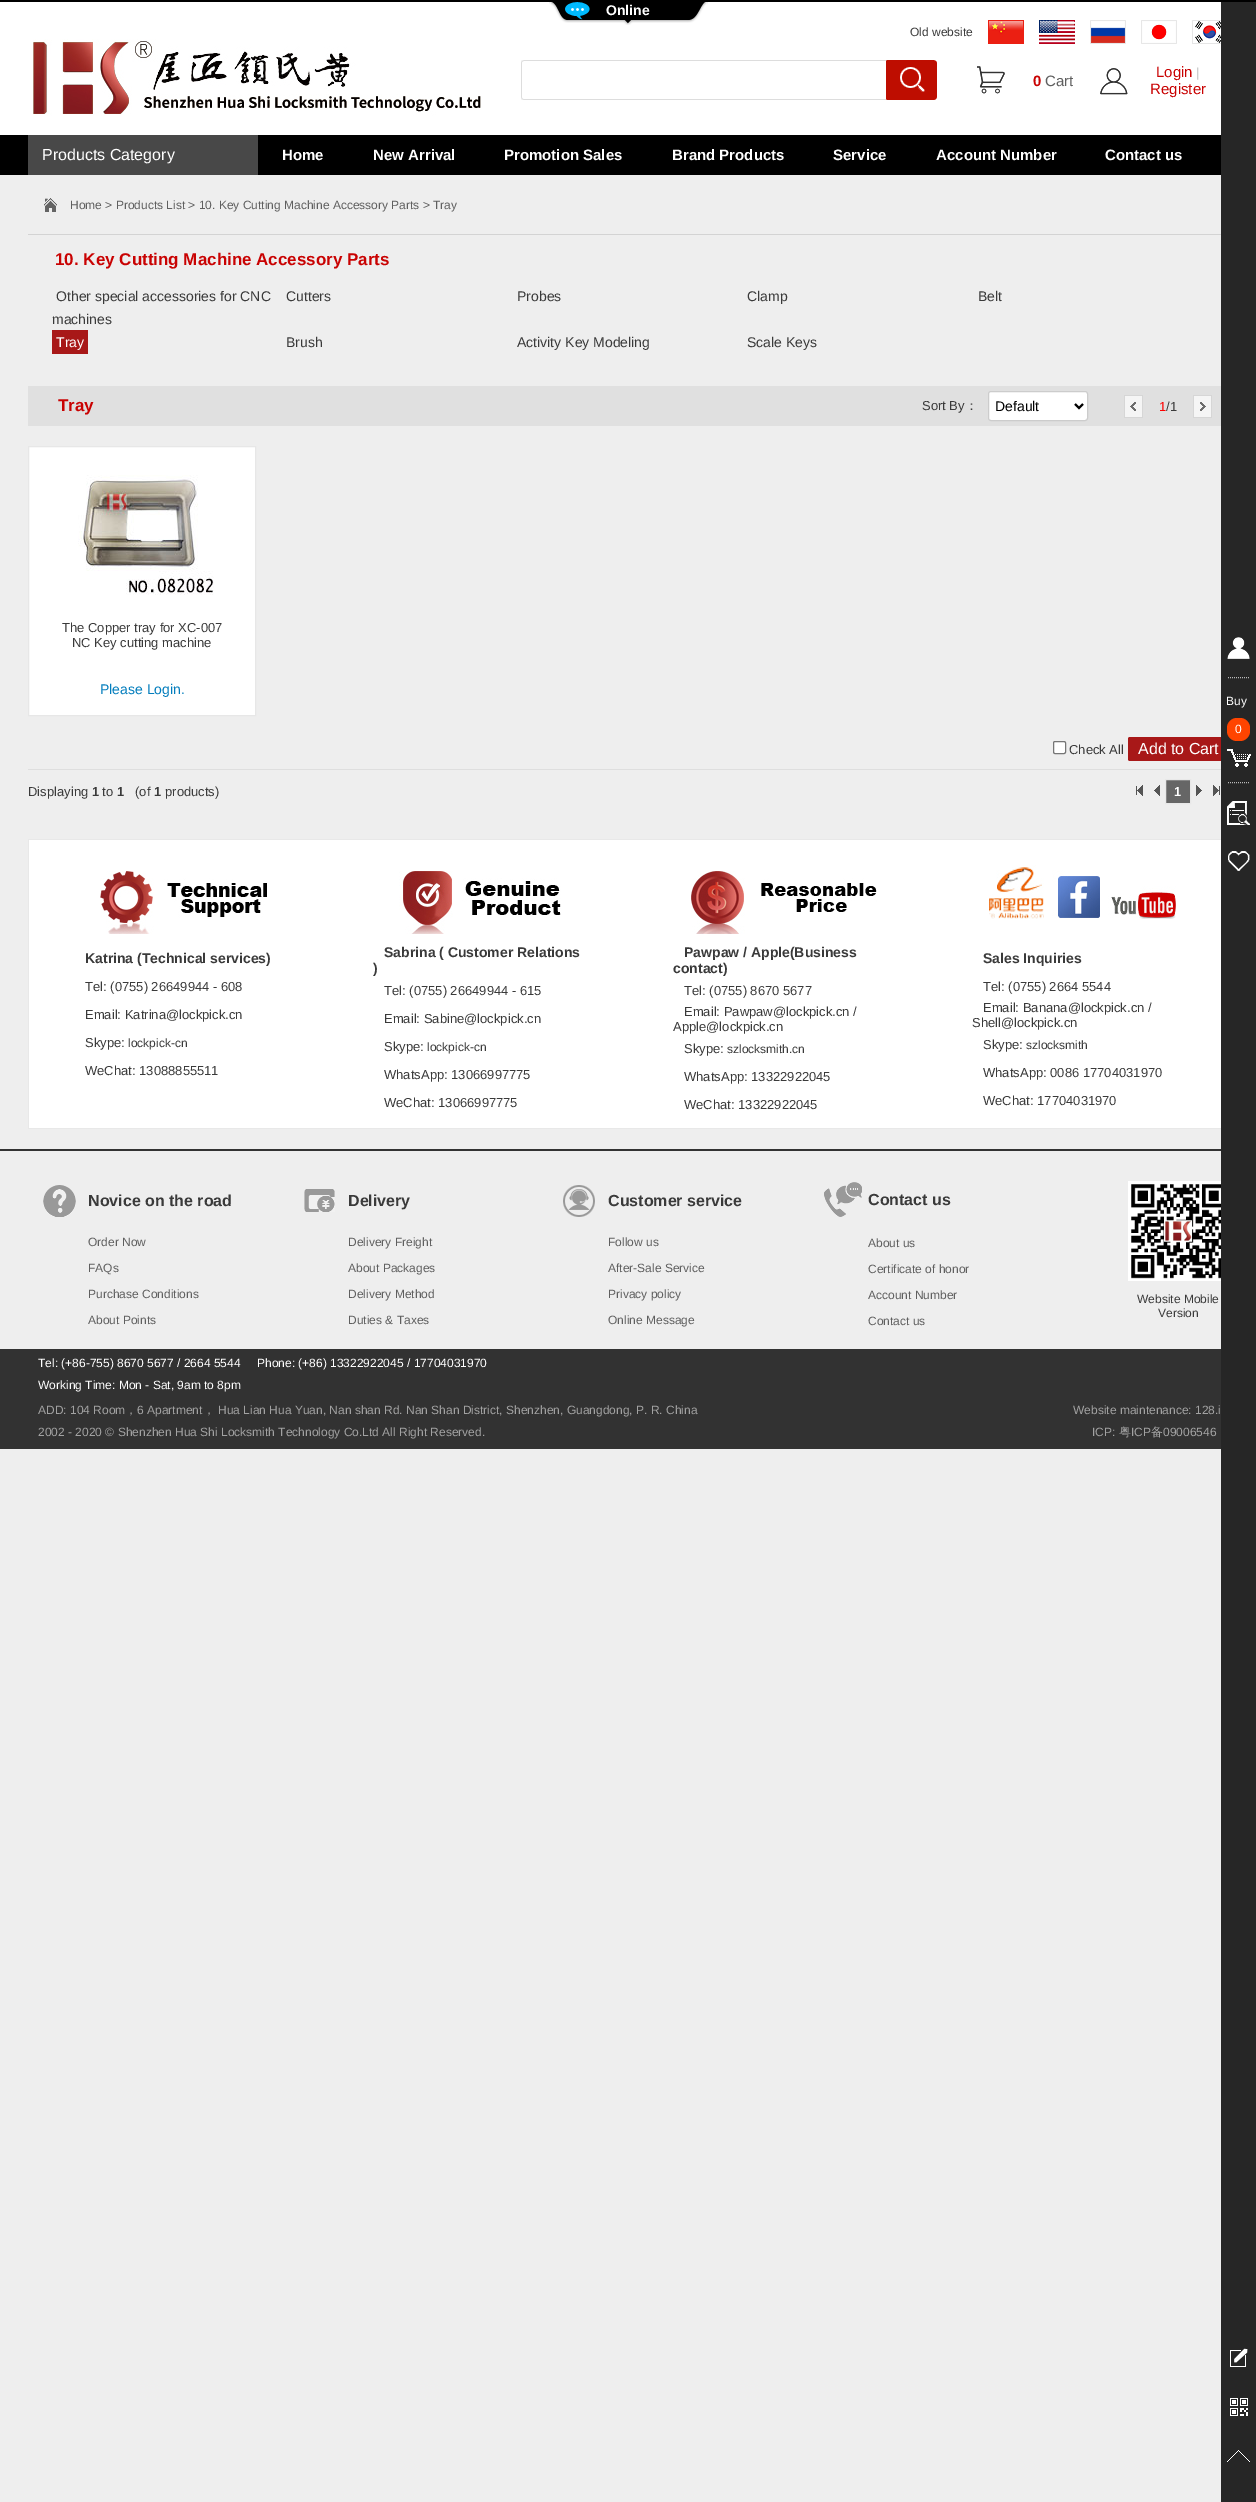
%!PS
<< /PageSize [1256 2502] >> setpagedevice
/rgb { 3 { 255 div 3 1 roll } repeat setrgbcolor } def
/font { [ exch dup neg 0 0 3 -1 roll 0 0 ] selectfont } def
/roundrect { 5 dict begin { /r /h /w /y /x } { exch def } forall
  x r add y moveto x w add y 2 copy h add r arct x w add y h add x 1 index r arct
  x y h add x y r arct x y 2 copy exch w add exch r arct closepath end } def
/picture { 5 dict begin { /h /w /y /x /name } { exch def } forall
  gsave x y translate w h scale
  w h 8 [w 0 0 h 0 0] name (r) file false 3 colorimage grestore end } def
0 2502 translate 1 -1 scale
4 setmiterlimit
238 238 238 rgb
0 0 1256 2502 rectfill
0 0 0 rgb
0 0 1256 2 rectfill
255 255 255 rgb
0 2 1221 133 rectfill
(img/1.rgb) 549 2 159 23 picture
(img/2.rgb) 33 39 448 77 picture
(img/3.rgb) 988 20 36 24 picture
(img/4.rgb) 1039 20 36 24 picture
(img/5.rgb) 1090 20 36 24 picture
(img/6.rgb) 1141 20 36 24 picture
(img/7.rgb) 1192 20 29 24 picture
(img/8.rgb) 521 60 365 40 picture
(img/9.rgb) 886 60 51 40 picture
(img/10.rgb) 977 66 28 28 picture
(img/11.rgb) 1100 68 28 27 picture
0 0 0 rgb
0 135 1221 40 rectfill
72 72 72 rgb
28 135 230 40 rectfill
(img/12.rgb) 44 198 13 14 picture
[
  [28 234 1200 1 211 211 211]
  [52 330 36 24 168 24 24]
  [28 386 1193 40 224 224 224]
] { aload pop rgb rectfill } forall
255 255 255 rgb
988.5 391.5 99 29 2.5 roundrect gsave fill grestore
204 204 204 rgb
stroke
0 0 0 rgb
2 setlinewidth
1075 404 moveto 1079 408 lineto 1083 404 lineto stroke
(img/13.rgb) 1124 395 19 23 picture
(img/14.rgb) 1193 395 19 23 picture
255 255 255 rgb
28.5 446.5 moveto 255.5 446.5 lineto 255.5 715.5 lineto 28.5 715.5 lineto closepath gsave fill grestore
231 231 231 rgb
1 setlinewidth
stroke
(img/15.rgb) 78 475 136 120 picture
255 255 255 rgb
1053.5 741.5 12 12 1.5 roundrect gsave fill grestore
118 118 118 rgb
stroke
168 24 24 rgb
1128 737 100 24 2 roundrect fill
222 222 222 rgb
28 769 1193 1 rectfill
(img/16.rgb) 1136 785 7 11 picture
(img/17.rgb) 1154 785 6 11 picture
102 102 102 rgb
1165.5 779.5 moveto 1190.5 779.5 lineto 1190.5 803.5 lineto 1165.5 803.5 lineto closepath gsave fill grestore
232 232 232 rgb
stroke
(img/18.rgb) 1196 785 6 11 picture
(img/19.rgb) 1213 785 7 11 picture
[
  [28 839 1200 1 232 232 232]
  [28 1128 1200 1 232 232 232]
  [1221 2 35 2500 38 38 38]
] { aload pop rgb rectfill } forall
(img/20.rgb) 1227 637 23 22 picture
187 187 187 rgb
[1 1] 0 setdash
1228 677.5 moveto 1249 677.5 lineto stroke
255 68 0 rgb
1227 718 23 23 10 roundrect fill
(img/21.rgb) 1227 749 24 18 picture
187 187 187 rgb
1228 782.5 moveto 1249 782.5 lineto stroke
(img/22.rgb) 1227 801 23 24 picture
(img/23.rgb) 1228 851 22 20 picture
(img/24.rgb) 1230 2348 18 19 picture
(img/25.rgb) 1230 2398 18 18 picture
(img/26.rgb) 1227 2450 23 12 picture
255 255 255 rgb
29 840 1192 288 rectfill
232 232 232 rgb
28 839 1 290 rectfill
(img/27.rgb) 100 871 167 63 picture
(img/28.rgb) 399 871 162 63 picture
(img/29.rgb) 691 871 186 63 picture
(img/30.rgb) 989 865 187 54 picture
50 50 50 rgb
0 1149 1221 2 rectfill
(img/31.rgb) 43 1185 33 32 picture
(img/32.rgb) 304 1189 31 23 picture
(img/33.rgb) 563 1185 32 32 picture
(img/34.rgb) 824 1182 38 35 picture
(img/35.rgb) 1128 1181 93 100 picture
0 1349 1221 100 rectfill
/LiberationSans-Bold 14 font
255 255 255 rgb
606 15 moveto (Online) show
/LiberationSans-Regular 12 font
58 58 58 rgb
910 36 moveto (Old website) show
/LiberationSans-Bold 15 font
201 2 2 rgb
1033 86 moveto (0) show
/LiberationSans-Regular 15 font
95 95 95 rgb
1045 86 moveto (Cart) show
201 2 2 rgb
1156 77 moveto (Login) show
/LiberationSans-Regular 13 font
188 188 188 rgb
1196 77 moveto (|) show
/LiberationSans-Regular 15 font
201 2 2 rgb
1150 94 moveto (Register) show
/LiberationSans-Regular 16 font
255 255 255 rgb
42 160 moveto (Products Category) show
/LiberationSans-Bold 15 font
[
  [(Home) 282 160]
  [(New Arrival) 373 160]
  [(Promotion Sales) 504 160]
  [(Brand Products) 672 160]
  [(Service) 833 160]
  [(Account Number) 936 160]
  [(Contact us) 1105 160]
] { aload pop moveto show } forall
/LiberationSans-Regular 12 font
95 95 95 rgb
70 209 moveto (Home > Products List > 10. Key Cutting Machine Accessory Parts > Tray) show
/LiberationSans-Bold 17 font
201 2 2 rgb
55 265 moveto (10. Key Cutting Machine Accessory Parts) show
/LiberationSans-Regular 14 font
58 58 58 rgb
[
  [(Other special accessories for CNC) 56 301]
  [(machines) 52 324]
  [(Cutters) 286 301]
  [(Probes) 517 301]
  [(Clamp) 747 301]
  [(Belt) 978 301]
] { aload pop moveto show } forall
255 255 255 rgb
56 347 moveto (Tray) show
58 58 58 rgb
[
  [(Brush) 286 347]
  [(Activity Key Modeling) 517 347]
  [(Scale Keys) 747 347]
] { aload pop moveto show } forall
/LiberationSans-Bold 17 font
201 2 2 rgb
58 411 moveto (Tray) show
/LiberationSans-Regular 13 font
58 58 58 rgb
922 410 moveto (Sort By) show
/WenQuanYiZenHei-Medium 13 font
965 410 moveto (：) show
/LiberationSans-Regular 14 font
0 0 0 rgb
995 411 moveto (Default) show
/LiberationSans-Regular 13 font
255 0 0 rgb
1159 411 moveto (1) show
58 58 58 rgb
[
  [(/1) 1166 411]
  [(The Copper tray for XC-007) 62 632]
  [(NC Key cutting machine) 72 647]
] { aload pop moveto show } forall
/LiberationSans-Regular 14 font
2 125 189 rgb
100 694 moveto (Please Login.) show
/LiberationSans-Regular 13 font
58 58 58 rgb
1069 754 moveto (Check All) show
/LiberationSans-Regular 16 font
255 255 255 rgb
1138 754 moveto (Add to Cart) show
/LiberationSans-Regular 13 font
58 58 58 rgb
28 796 moveto (Displaying) show
/LiberationSans-Bold 13 font
92 796 moveto (1) show
/LiberationSans-Regular 13 font
102 796 moveto (to) show
/LiberationSans-Bold 13 font
117 796 moveto (1) show
/LiberationSans-Regular 13 font
135 796 moveto (\(of) show
/LiberationSans-Bold 13 font
154 796 moveto (1) show
/LiberationSans-Regular 13 font
165 796 moveto (products\)) show
/LiberationSans-Bold 13 font
255 255 255 rgb
1174 796 moveto (1) show
/LiberationSans-Regular 12 font
1226 705 moveto (Buy) show
1235 733 moveto (0) show
/LiberationSans-Bold 14 font
58 58 58 rgb
85 963 moveto (Katrina \(Technical services\)) show
/LiberationSans-Regular 13 font
[
  [(Tel: \(0755\) 26649944 - 608) 85 991]
  [(Email: Katrina@lockpick.cn) 85 1019]
  [(Skype:) 85 1047]
] { aload pop moveto show } forall
/LiberationSans-Regular 12 font
128 1047 moveto (lockpick-cn) show
/LiberationSans-Regular 13 font
85 1075 moveto (WeChat: 13088855511) show
/LiberationSans-Bold 14 font
384 957 moveto (Sabrina \( Customer Relations) show
373 973 moveto (\)) show
/LiberationSans-Regular 13 font
[
  [(Tel: \(0755\) 26649944 - 615) 384 995]
  [(Email: Sabine@lockpick.cn) 384 1023]
  [(Skype:) 384 1051]
] { aload pop moveto show } forall
/LiberationSans-Regular 12 font
427 1051 moveto (lockpick-cn) show
/LiberationSans-Regular 13 font
384 1079 moveto (WhatsApp: 13066997775) show
384 1107 moveto (WeChat: 13066997775) show
/LiberationSans-Bold 14 font
684 957 moveto (Pawpaw / Apple\(Business) show
673 973 moveto (contact\)) show
/LiberationSans-Regular 13 font
[
  [(Tel: \(0755\) 8670 5677) 684 995]
  [(Email: Pawpaw@lockpick.cn /) 684 1016]
  [(Apple@lockpick.cn) 673 1031]
  [(Skype:) 684 1053]
] { aload pop moveto show } forall
/LiberationSans-Regular 12 font
727 1053 moveto (szlocksmith.cn) show
/LiberationSans-Regular 13 font
684 1081 moveto (WhatsApp: 13322922045) show
684 1109 moveto (WeChat: 13322922045) show
/LiberationSans-Bold 14 font
983 963 moveto (Sales Inquiries) show
/LiberationSans-Regular 13 font
[
  [(Tel: \(0755\) 2664 5544) 983 991]
  [(Email: Banana@lockpick.cn /) 983 1012]
  [(Shell@lockpick.cn) 972 1027]
  [(Skype:) 983 1049]
] { aload pop moveto show } forall
/LiberationSans-Regular 12 font
1026 1049 moveto (szlocksmith) show
/LiberationSans-Regular 13 font
983 1077 moveto (WhatsApp: 0086 17704031970) show
983 1105 moveto (WeChat: 17704031970) show
/LiberationSans-Bold 16 font
88 1206 moveto (Novice on the road) show
/LiberationSans-Regular 12 font
95 95 95 rgb
[
  [(Order Now) 88 1246]
  [(FAQs) 88 1272]
  [(Purchase Conditions) 88 1298]
  [(About Points) 88 1324]
] { aload pop moveto show } forall
/LiberationSans-Bold 16 font
58 58 58 rgb
348 1206 moveto (Delivery) show
/LiberationSans-Regular 12 font
95 95 95 rgb
[
  [(Delivery Freight) 348 1246]
  [(About Packages) 348 1272]
  [(Delivery Method) 348 1298]
  [(Duties & Taxes) 348 1324]
] { aload pop moveto show } forall
/LiberationSans-Bold 16 font
58 58 58 rgb
608 1206 moveto (Customer service) show
/LiberationSans-Regular 12 font
95 95 95 rgb
[
  [(Follow us) 608 1246]
  [(After-Sale Service) 608 1272]
  [(Privacy policy) 608 1298]
  [(Online Message) 608 1324]
] { aload pop moveto show } forall
/LiberationSans-Bold 16 font
58 58 58 rgb
868 1205 moveto (Contact us) show
/LiberationSans-Regular 12 font
95 95 95 rgb
[
  [(About us) 868 1247]
  [(Certificate of honor) 868 1273]
  [(Account Number) 868 1299]
  [(Contact us) 868 1325]
] { aload pop moveto show } forall
58 58 58 rgb
1137 1303 moveto (Website Mobile) show
1158 1317 moveto (Version) show
255 255 255 rgb
38 1367 moveto (Tel: \(+86-755\) 8670 5677 / 2664 5544     Phone: \(+86\) 13322922045 / 17704031970) show
38 1389 moveto (Working Time: Mon - Sat, 9am to 8pm) show
162 162 162 rgb
38 1414 moveto (ADD: 104 Room) show
/WenQuanYiZenHei-Medium 12 font
125 1414 moveto (，) show
/LiberationSans-Regular 12 font
137 1414 moveto (6 Apartment) show
/WenQuanYiZenHei-Medium 12 font
203 1414 moveto (，) show
/LiberationSans-Regular 12 font
[
  [(Hua Lian Hua Yuan, Nan shan Rd. Nan Shan District, Shenzhen, Guangdong, P. R. China) 218 1414]
  [(2002 - 2020 © Shenzhen Hua Shi Locksmith Technology Co.Ltd All Right Reserved.) 38 1436]
  [(Website maintenance: 128.i) 1073 1414]
  [(ICP:) 1092 1436]
] { aload pop moveto show } forall
/WenQuanYiZenHei-Medium 12 font
1119 1436 moveto (粤) show
/LiberationSans-Regular 12 font
1131 1436 moveto (ICP) show
/WenQuanYiZenHei-Medium 12 font
1151 1436 moveto (备) show
/LiberationSans-Regular 12 font
1163 1436 moveto (09006546) show
showpage
